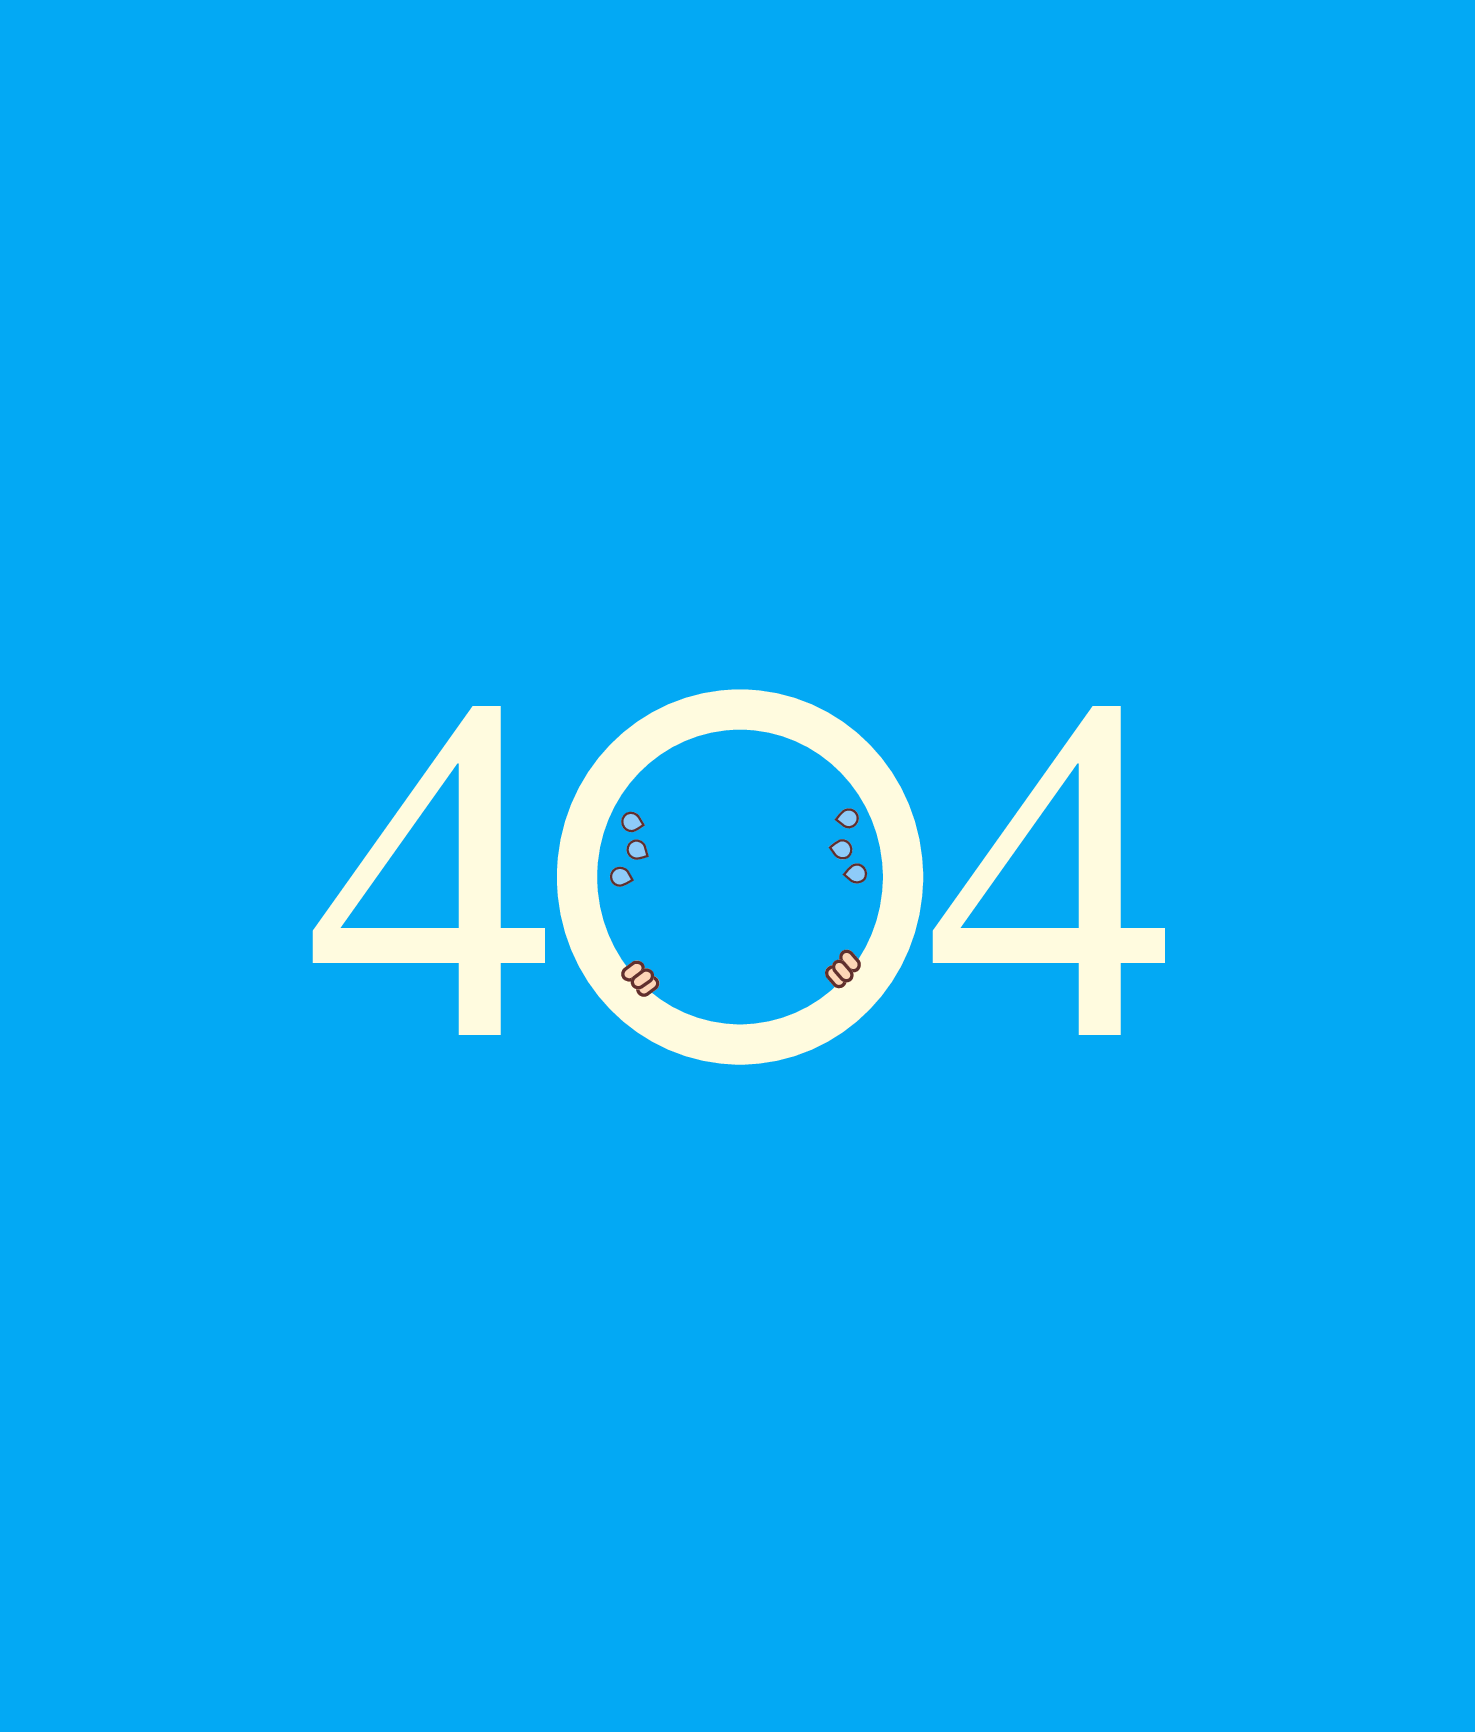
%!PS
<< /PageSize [1475 1732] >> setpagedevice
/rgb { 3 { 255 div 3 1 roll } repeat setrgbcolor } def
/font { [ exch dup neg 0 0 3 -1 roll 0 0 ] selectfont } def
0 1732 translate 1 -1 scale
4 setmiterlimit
3 169 244 rgb
0 0 1475 1732 rectfill
255 251 223 rgb
40 setlinewidth
740 709.5 moveto 830 709.5 903 784.5 903 877 curveto 903 969.5 830 1044.5 740 1044.5 curveto 650 1044.5 577 969.5 577 877 curveto 577 784.5 650 709.5 740 709.5 curveto closepath stroke
142 203 249 rgb
634 840 moveto 639 838.5 644.5 841.5 646 847 curveto 648.5 856.5 lineto 645 857.5 639 860 635 859.5 curveto 624.5 858 623.5 842.5 634 840 curveto closepath fill
96 47 45 rgb
2 setlinewidth
634 841 moveto 639 839.5 644 842.5 645 847 curveto 647.5 856 lineto 644 857 639 859 635.5 858.5 curveto 625.5 857 625 843.5 634 841 curveto closepath stroke
142 203 249 rgb
626 813.5 moveto 631 810.5 637 812 640 817 curveto 645 825.5 lineto 641.5 827.5 636.5 831.5 632.5 832 curveto 621.5 833 617 818.5 626 813.5 curveto closepath fill
96 47 45 rgb
626.5 814 moveto 631 811.5 636.5 813 639 817.5 curveto 643.5 825 lineto 640.5 827 636 830.5 632.5 831 curveto 622.5 832 618.5 819 626.5 814 curveto closepath stroke
142 203 249 rgb
615 868 moveto 620 865.5 626 867 628.5 871.5 curveto 633.5 880.5 lineto 630 882.5 625 886 621 886.5 curveto 610.5 888 605.5 873.5 615 868 curveto closepath fill
96 47 45 rgb
615.5 869 moveto 620 866.5 625.5 868 628 872 curveto 632.5 880 lineto 629 882 624.5 885 621 885.5 curveto 611.5 887 607 874 615.5 869 curveto closepath stroke
142 203 249 rgb
848 857.5 moveto 843.5 861 837.5 860 834.5 855 curveto 828.5 847 lineto 832 844.5 836.5 840.5 840.5 839.5 curveto 851 837.5 857 851.5 848 857.5 curveto closepath fill
96 47 45 rgb
847.5 857 moveto 843.5 859.5 838 858.5 835 854.5 curveto 830 847.5 lineto 833 845 837 841.5 840.5 840.5 curveto 850 838.5 855.5 851.5 847.5 857 curveto closepath stroke
142 203 249 rgb
856.5 824.5 moveto 853 829 846.5 829.5 842.5 826 curveto 834.5 819.5 lineto 837.5 816.5 840.5 811 844 809.5 curveto 854 804.5 863.5 816.5 856.5 824.5 curveto closepath fill
96 47 45 rgb
855.5 824 moveto 852.5 828 846.5 828.5 843 825 curveto 836 819.5 lineto 838.5 816.5 841.5 812 844.5 810.5 curveto 853.5 806 862 816.5 855.5 824 curveto closepath stroke
142 203 249 rgb
864.5 880 moveto 861 884 854.5 885 850.5 881 curveto 843 875 lineto 845.5 871.5 849 866.5 852.5 864.5 curveto 862 860 871.5 872 864.5 880 curveto closepath fill
96 47 45 rgb
864 879.5 moveto 860.5 883 855 883.5 851 880.5 curveto 844 874.5 lineto 846.5 872 849.5 867 853 865.5 curveto 861.5 861 870 872 864 879.5 curveto closepath stroke
253 213 182 rgb
624.5 968 moveto 632.5 962 lineto 636 959.5 640.5 960.5 643 963.5 curveto 645.5 967 645 971.5 641.5 974 curveto 633.5 980 lineto 630 982.5 625.5 981.5 623 978.5 curveto 620.5 975 621 970.5 624.5 968 curveto closepath fill
96 47 45 rgb
3 setlinewidth
625.5 969 moveto 633.5 963 lineto 636 961.5 640 962 642 964.5 curveto 644 967 643.5 971 640.5 973 curveto 632.5 979 lineto 630 980.5 626 980 624 977.5 curveto 622 975 622.5 971 625.5 969 curveto closepath stroke
253 213 182 rgb
639.5 983 moveto 647.5 977 lineto 651 975 655.5 975.5 658 979 curveto 660.5 982 659.5 987 656 989.5 curveto 648 995 lineto 645 997.5 640 997 637.5 993.5 curveto 635 990 636 985.5 639.5 983 curveto closepath fill
96 47 45 rgb
640 984.5 moveto 648.5 978.5 lineto 651 976.5 654.5 977 656.5 980 curveto 658.5 982.5 658 986 655.5 988 curveto 647.5 994 lineto 644.5 996 641 995.5 639 992.5 curveto 637 990 637.5 986.5 640 984.5 curveto closepath stroke
253 213 182 rgb
634 976 moveto 642 970 lineto 645.5 967.5 650 968 652.5 971.5 curveto 655 975 654.5 979.5 651 982 curveto 643 988 lineto 639.5 990.5 635 989.5 632.5 986.5 curveto 630 983 630.5 978.5 634 976 curveto closepath fill
96 47 45 rgb
635 977 moveto 643 971 lineto 645.5 969 649.5 970 651.5 972.5 curveto 653.5 975 652.5 979 650 981 curveto 642 986.5 lineto 639.5 988.5 635.5 988 633.5 985.5 curveto 631.5 982.5 632 979 635 977 curveto closepath stroke
253 213 182 rgb
852.5 952.5 moveto 859 960 lineto 861.5 963 861 968 858 970.5 curveto 855 973 850 973 847.5 969.5 curveto 841 962 lineto 838.5 959 839 954 842 951.5 curveto 845 949 850 949 852.5 952.5 curveto closepath fill
96 47 45 rgb
851.5 953.5 moveto 858 961 lineto 860 963.5 859.5 967.5 857 969.5 curveto 854.5 971.5 850.5 971 848.5 968.5 curveto 842 961 lineto 840 958.5 840.5 954.5 843 952.5 curveto 845.5 950.5 849.5 951 851.5 953.5 curveto closepath stroke
253 213 182 rgb
838.5 968 moveto 845 976 lineto 847.5 979 847 983.5 844 986.5 curveto 840.5 989 836 988.5 833.5 985.5 curveto 827 978 lineto 824 974.5 824.5 970 828 967 curveto 831 964.5 835.5 965 838.5 968 curveto closepath fill
96 47 45 rgb
837 969 moveto 843.5 977 lineto 846 979.5 845.5 983 843 985 curveto 840.5 987.5 836.5 987 834.5 984.5 curveto 828 977 lineto 826 974.5 826 970.5 829 968.5 curveto 831.5 966 835 966.5 837 969 curveto closepath stroke
253 213 182 rgb
845.5 962.5 moveto 851.5 970 lineto 854.5 973 854 978 851 980.5 curveto 847.5 983 843 983 840 979.5 curveto 834 972 lineto 831 969 831.5 964 834.5 961.5 curveto 838 959 842.5 959 845.5 962.5 curveto closepath fill
96 47 45 rgb
844 963.5 moveto 850.5 971 lineto 852.5 973.5 852.5 977.5 850 979.5 curveto 847.5 981.5 843.5 981 841.5 978.5 curveto 835 971 lineto 833 968.5 833 964.5 835.5 962.5 curveto 838 960.5 842 961 844 963.5 curveto closepath stroke
/LiberationSerif-Regular 500 font
255 251 223 rgb
303 1035 moveto (4) show
923 1035 moveto (4) show
showpage
